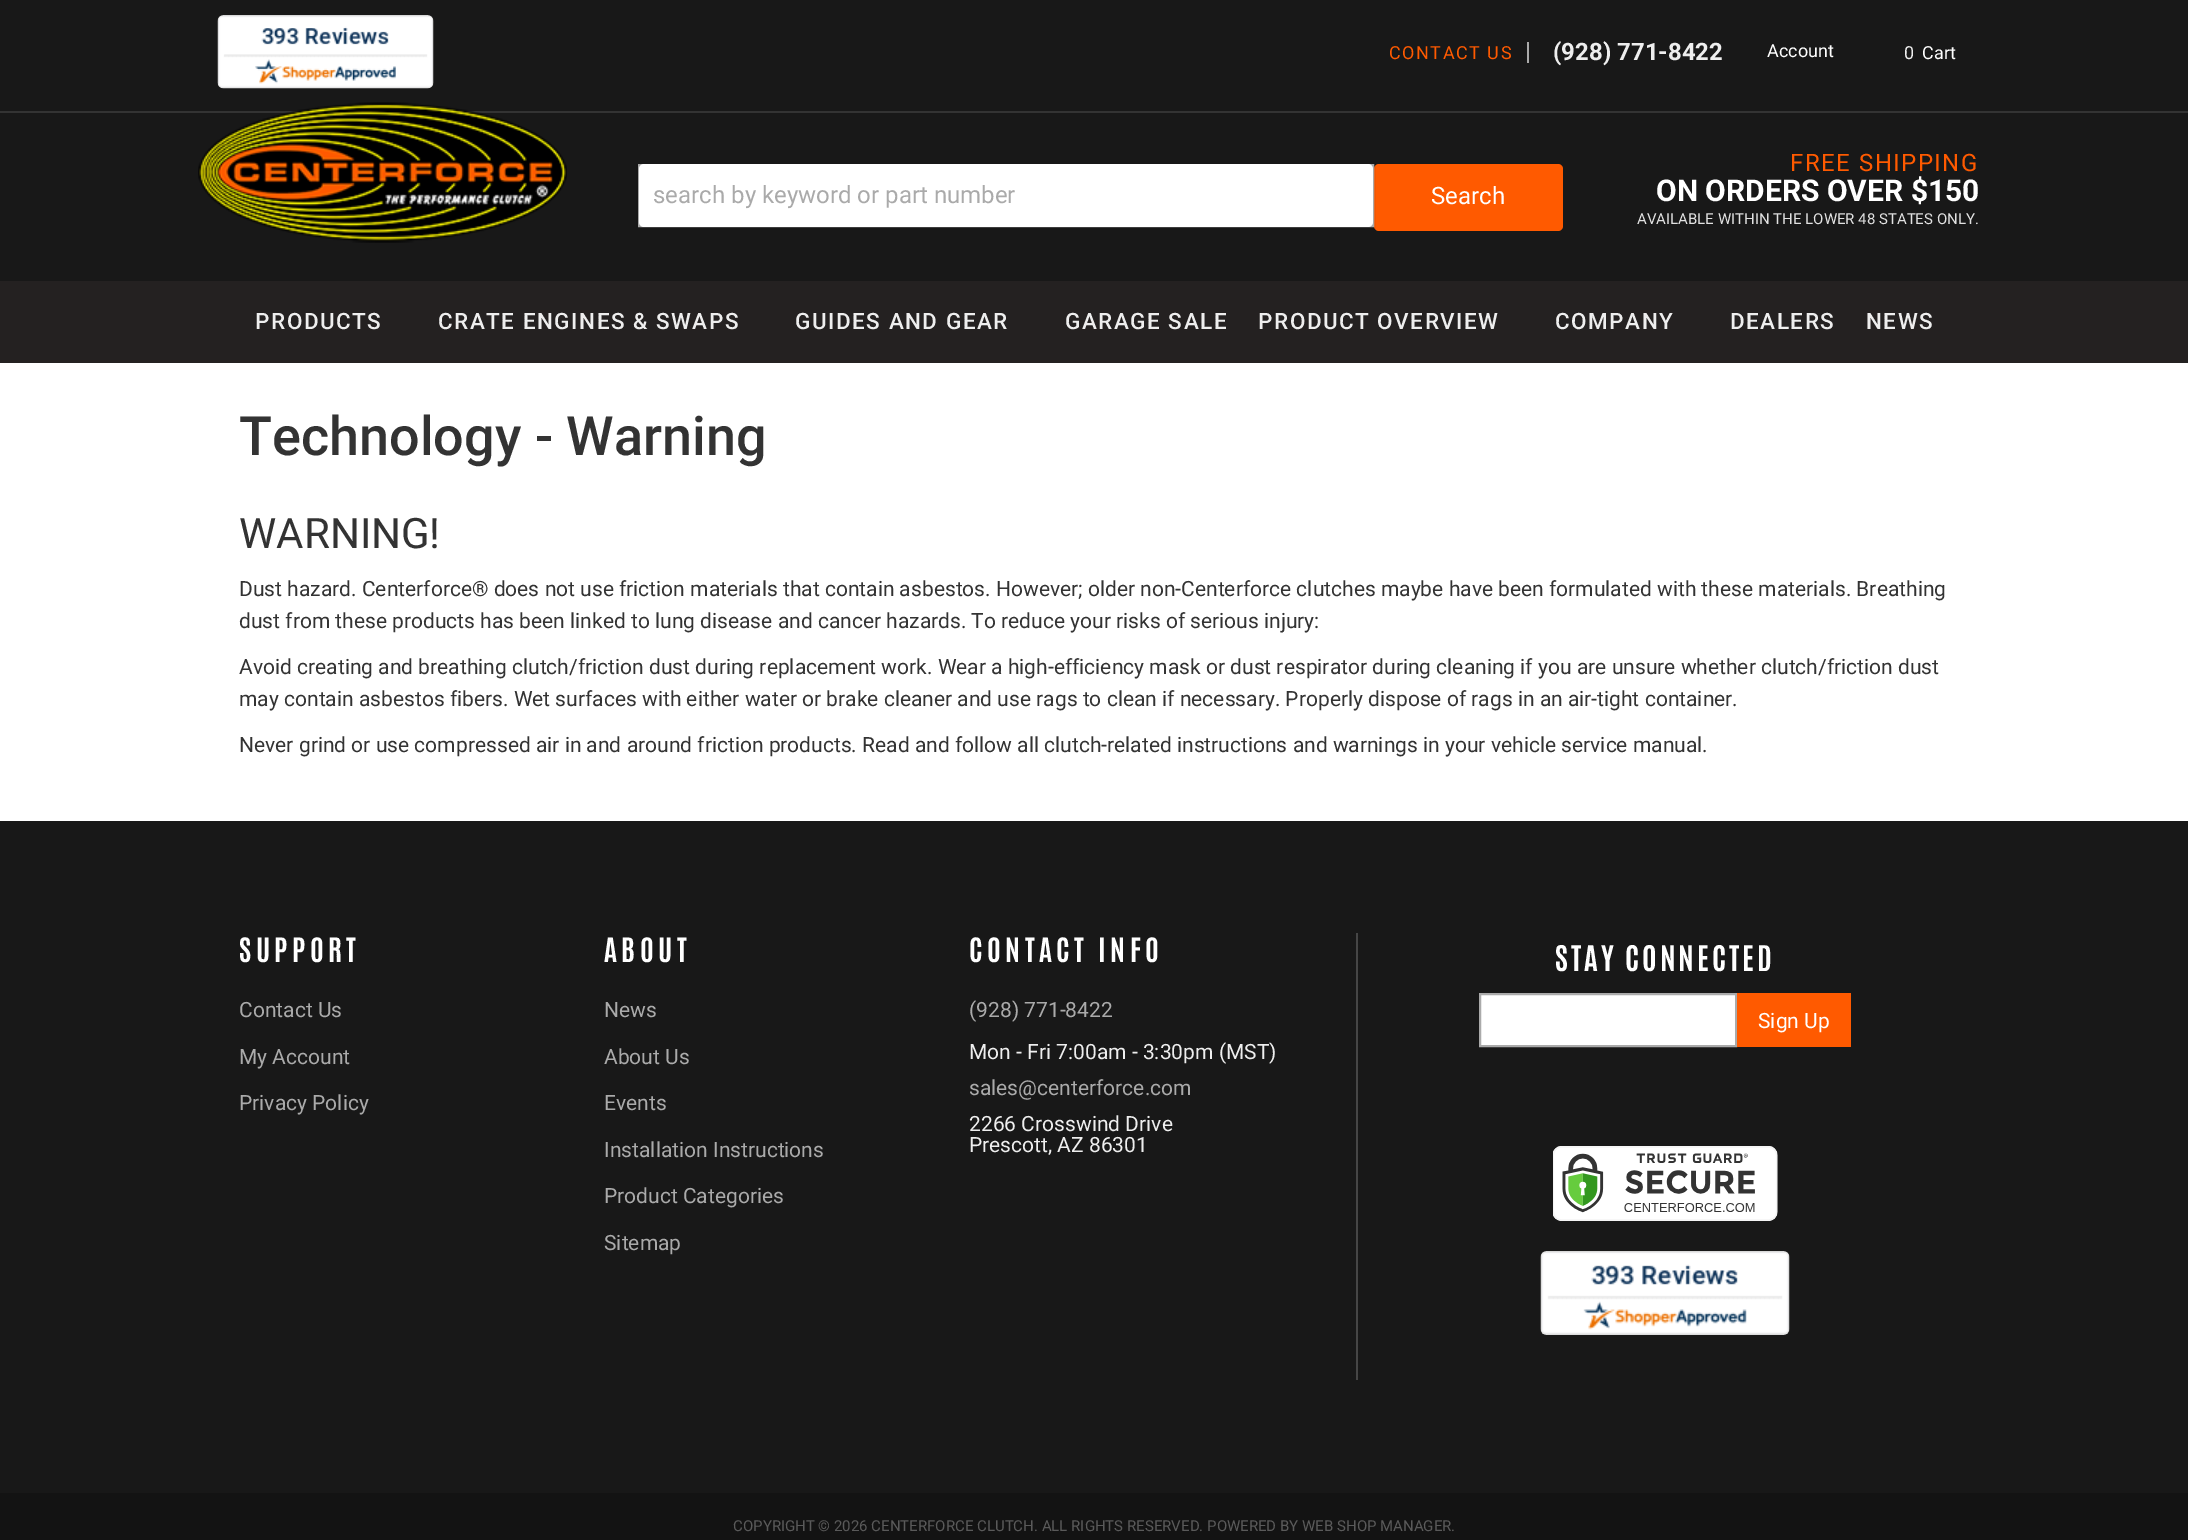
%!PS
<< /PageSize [2188 1540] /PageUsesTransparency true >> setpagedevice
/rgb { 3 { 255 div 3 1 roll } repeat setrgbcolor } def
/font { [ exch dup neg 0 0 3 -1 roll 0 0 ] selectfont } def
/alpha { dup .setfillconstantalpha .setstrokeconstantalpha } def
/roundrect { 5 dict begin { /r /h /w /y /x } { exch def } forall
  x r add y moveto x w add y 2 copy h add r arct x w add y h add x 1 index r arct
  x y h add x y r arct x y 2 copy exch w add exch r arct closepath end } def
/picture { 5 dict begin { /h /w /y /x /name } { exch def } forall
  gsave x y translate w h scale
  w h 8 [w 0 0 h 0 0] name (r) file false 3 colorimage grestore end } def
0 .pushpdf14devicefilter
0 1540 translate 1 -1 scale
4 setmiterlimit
255 255 255 rgb
0 0 2188 1540 rectfill
24 24 24 rgb
0 0 2188 281 rectfill
51 51 51 rgb
0 111 2188 2 rectfill
(img/1.rgb) 217 15 217 74 picture
170 170 170 rgb
1527 42 2 21 rectfill
(img/2.rgb) 198 102 369 141 picture
255 90 0 rgb
1374 164 189 67 5 roundrect fill
0.04 alpha
0 0 0 rgb
636 164 moveto 636 230 lineto 1376 230 lineto 1376 164 lineto 1374 164 lineto 1374 226 lineto 638 226 lineto 638 164 lineto closepath fill
1 alpha
170 170 170 rgb
2 setlinewidth
639 165 734 61 rectstroke
255 255 255 rgb
639 164 734 63 5 roundrect fill
[
  [0 281 2188 82 36 33 33]
  [0 821 2188 672 24 24 24]
  [1356 933 2 447 70 70 70]
] { aload pop rgb rectfill } forall
255 255 255 rgb
1480 994 moveto 1736 994 lineto 1736 1046 lineto 1480 1046 lineto closepath gsave fill grestore
170 170 170 rgb
stroke
255 90 0 rgb
1737 993 114 54 rectfill
(img/3.rgb) 1553 1146 225 75 picture
(img/4.rgb) 1540 1251 250 84 picture
19 19 19 rgb
0 1493 2188 47 rectfill
/Roboto-Regular 18 font
255 90 0 rgb
1389 59 moveto 1.5 0 (CONTACT US) ashow
/Roboto-Bold 24 font
238 238 238 rgb
1553 60 moveto (\(928\) 771-8422) show
/Roboto-Regular 18 font
255 255 255 rgb
1767 57 moveto (Account) show
238 238 238 rgb
1904 59 moveto (0) show
255 255 255 rgb
1922 59 moveto (Cart) show
/Roboto-Regular 24 font
170 170 170 rgb
653 203 moveto (search by keyword or part number) show
255 255 255 rgb
1431 204 moveto (Search) show
255 90 0 rgb
1790 171 moveto 1.5 0 (FREE SHIPPING) ashow
/Roboto-Bold 30 font
255 255 255 rgb
1656 201 moveto (ON ORDERS OVER $150) show
/Roboto-Regular 15 font
225 225 225 rgb
1637 224 moveto (AVAILABLE WITHIN THE LOWER 48 STATES ONLY.) show
/Roboto-Medium 22.5 font
238 238 238 rgb
255 329 moveto 1.5 0 (PRODUCTS) ashow
438 329 moveto 1.5 0 (CRATE ENGINES & SWAPS) ashow
795 329 moveto 1.5 0 (GUIDES AND GEAR) ashow
1065 329 moveto 1.5 0 (GARAGE SALE) ashow
1258 329 moveto 1.5 0 (PRODUCT OVERVIEW) ashow
1555 329 moveto 1.5 0 (COMPANY) ashow
1730 329 moveto 1.5 0 (DEALERS) ashow
1866 329 moveto 1.5 0 (NEWS) ashow
/Roboto-Medium 54 font
51 51 51 rgb
239 455 moveto (Technology - Warning) show
/Roboto-Regular 42 font
239 548 moveto (WARNING!) show
/Roboto-Regular 21 font
[
  [(Dust hazard. Centerforce® does not use friction materials that contain asbestos. However; older non-Centerforce clutches maybe have been formulated with these materials. Breathing) 239 596]
  [(dust from these products has been linked to lung disease and cancer hazards. To reduce your risks of serious injury:) 239 628]
  [(Avoid creating and breathing clutch/friction dust during replacement work. Wear a high-efficiency mask or dust respirator during cleaning if you are unsure whether clutch/friction dust) 239 674]
  [(may contain asbestos fibers. Wet surfaces with either water or brake cleaner and use rags to clean if necessary. Properly dispose of rags in an air-tight container.) 239 706]
  [(Never grind or use compressed air in and around friction products. Read and follow all clutch-related instructions and warnings in your vehicle service manual.) 239 752]
] { aload pop moveto show } forall
/Antonio-Bold 28.5 font
255 255 255 rgb
239 962 moveto 4.5 0 (SUPPORT) ashow
/Roboto-Regular 21 font
170 170 170 rgb
[
  [(Contact Us) 239 1017]
  [(My Account) 239 1064]
  [(Privacy Policy) 239 1110]
] { aload pop moveto show } forall
/Antonio-Bold 28.5 font
255 255 255 rgb
604 962 moveto 4.5 0 (ABOUT) ashow
/Roboto-Regular 21 font
170 170 170 rgb
[
  [(News) 604 1017]
  [(About Us) 604 1064]
  [(Events) 604 1110]
  [(Installation Instructions) 604 1157]
  [(Product Categories) 604 1203]
  [(Sitemap) 604 1250]
] { aload pop moveto show } forall
/Antonio-Bold 28.5 font
255 255 255 rgb
969 962 moveto 4.5 0 (CONTACT INFO) ashow
/Roboto-Regular 21 font
170 170 170 rgb
969 1017 moveto (\(928\) 771-8422) show
238 238 238 rgb
969 1059 moveto (Mon - Fri 7:00am - 3:30pm \(MST\)) show
170 170 170 rgb
969 1095 moveto (sales@centerforce.com) show
238 238 238 rgb
969 1131 moveto (2266 Crosswind Drive) show
969 1152 moveto (Prescott, AZ 86301) show
/Antonio-Bold 30 font
255 255 255 rgb
1555 971 moveto 3 0 (STAY CONNECTED) ashow
/Roboto-Regular 21 font
1758 1028 moveto (Sign Up) show
/Roboto-Regular 15 font
90 90 90 rgb
733 1531 moveto (COPYRIGHT © 2026 CENTERFORCE CLUTCH. ALL RIGHTS RESERVED. POWERED BY WEB SHOP MANAGER.) show
.poppdf14devicefilter showpage
